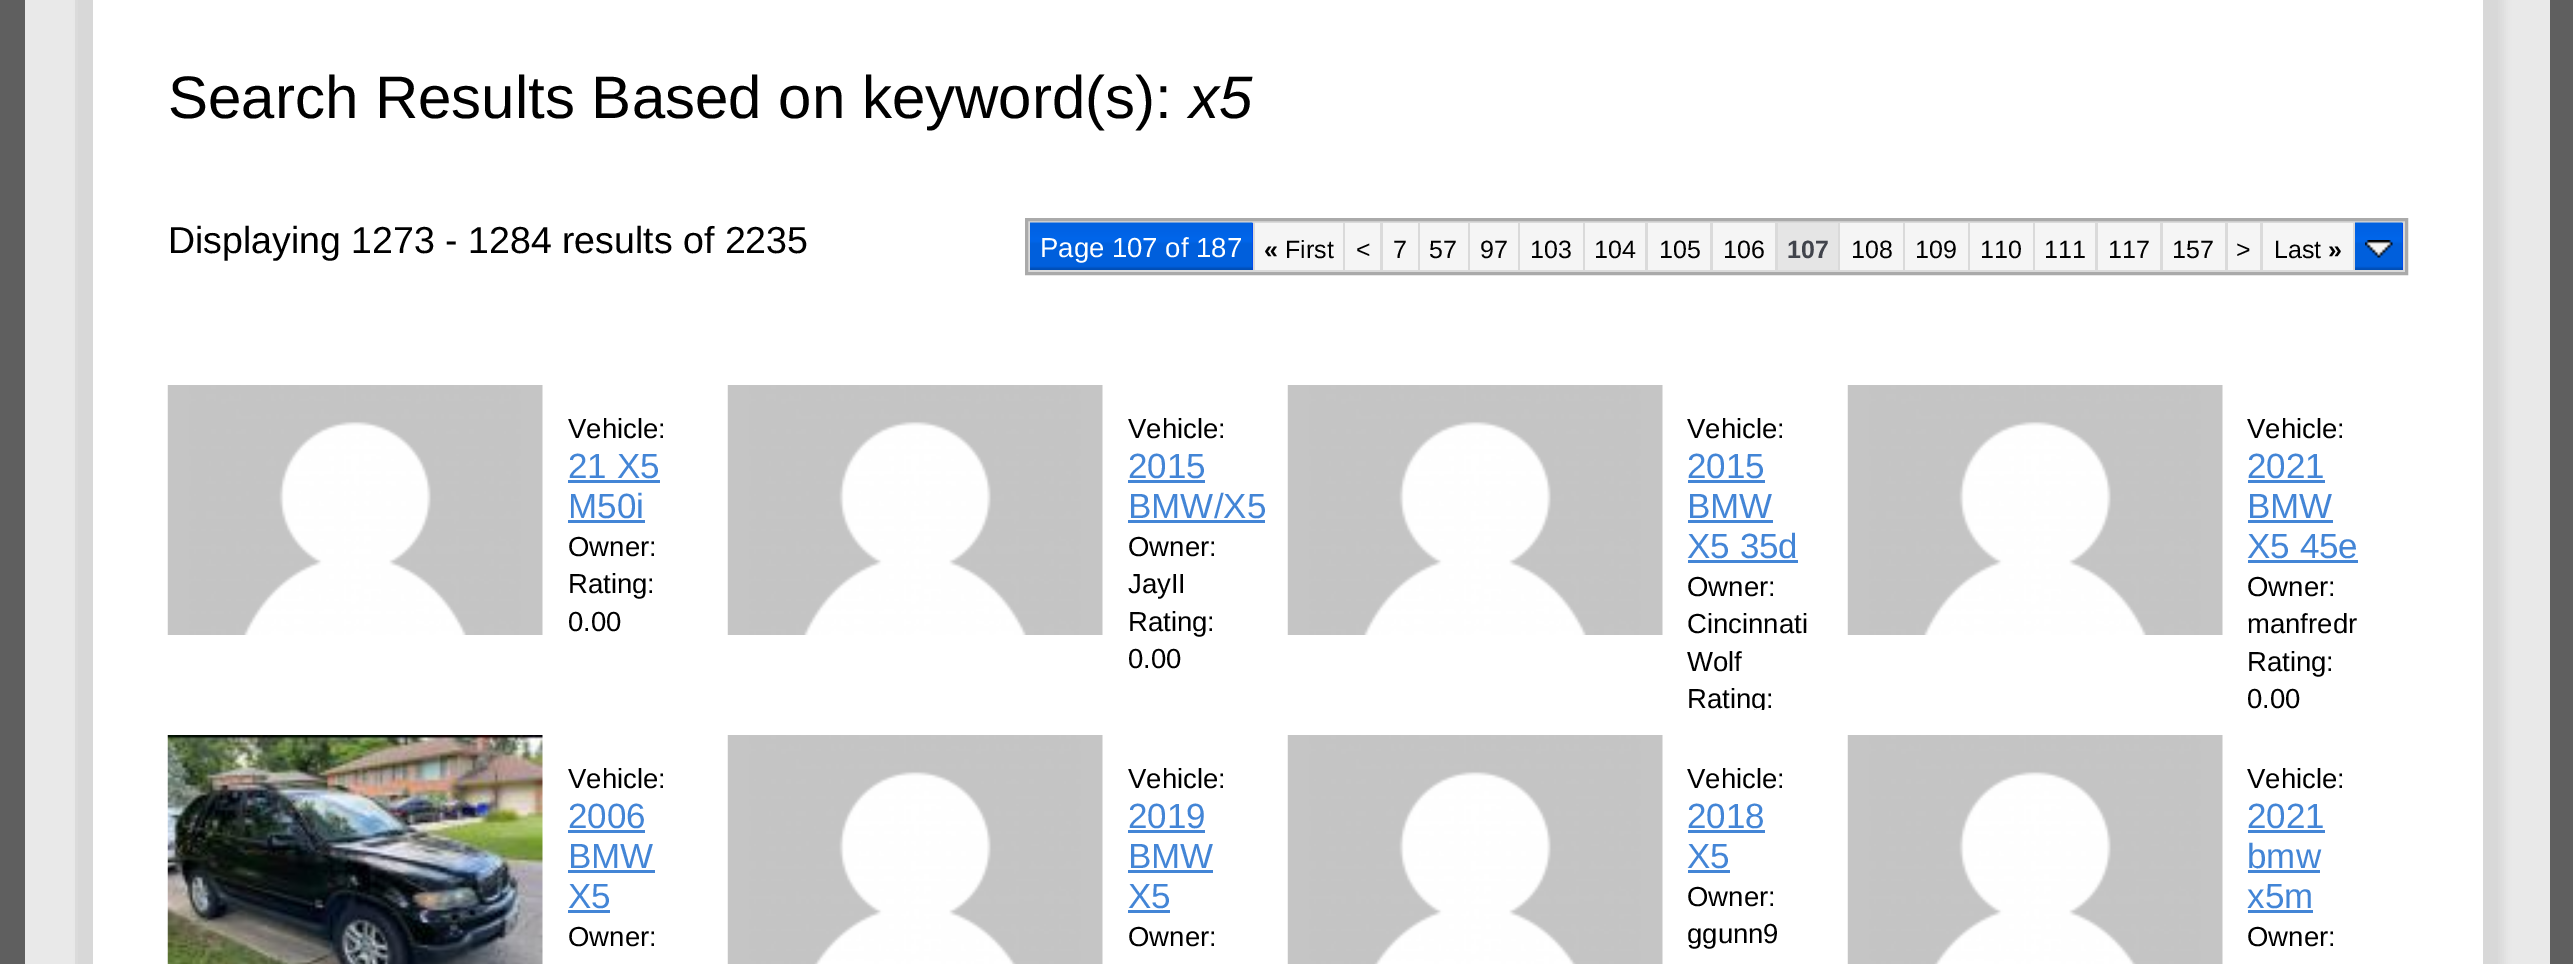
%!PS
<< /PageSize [2573 964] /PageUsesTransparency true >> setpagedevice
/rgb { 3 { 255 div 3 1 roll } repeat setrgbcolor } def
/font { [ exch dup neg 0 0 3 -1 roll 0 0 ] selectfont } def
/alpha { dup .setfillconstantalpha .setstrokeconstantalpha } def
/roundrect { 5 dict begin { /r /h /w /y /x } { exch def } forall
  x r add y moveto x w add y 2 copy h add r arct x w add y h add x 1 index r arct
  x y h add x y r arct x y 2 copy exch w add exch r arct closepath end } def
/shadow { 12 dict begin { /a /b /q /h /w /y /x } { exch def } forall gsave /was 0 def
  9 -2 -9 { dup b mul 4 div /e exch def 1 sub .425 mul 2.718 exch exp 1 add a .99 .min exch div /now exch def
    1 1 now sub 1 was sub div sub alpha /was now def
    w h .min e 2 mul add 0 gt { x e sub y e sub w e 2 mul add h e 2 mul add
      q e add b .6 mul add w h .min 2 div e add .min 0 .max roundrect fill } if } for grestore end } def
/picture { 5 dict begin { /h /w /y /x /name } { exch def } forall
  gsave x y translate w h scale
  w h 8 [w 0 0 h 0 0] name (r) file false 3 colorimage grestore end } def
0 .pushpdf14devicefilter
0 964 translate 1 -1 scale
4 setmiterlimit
95 95 95 rgb
0 0 2573 964 rectfill
233 233 233 rgb
25 0 2525 964 rectfill
0 0 0 rgb
80 -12 2425 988 0 4 0.05 shadow
255 255 255 rgb
93 0 2390 964 rectfill
219 219 219 rgb
2500 -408 moveto 2500 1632 lineto 2498 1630 lineto 2498 -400 lineto closepath fill
75 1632 moveto 75 -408 lineto 78 -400 lineto 78 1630 lineto closepath fill
216 216 216 rgb
2483 0 15 964 rectfill
78 0 15 964 rectfill
218 218 218 rgb
1026.5 219.5 moveto 2406.5 219.5 lineto 2406.5 273.5 lineto 1026.5 273.5 lineto closepath gsave fill grestore
170 170 170 rgb
3 setlinewidth
stroke
0 51 255 rgb
1252 223 1 47 rectfill
(img/1.rgb) 1030 222 223 48 picture
[
  [1255 223 88 47 245 245 245]
  [1345 223 35 47 245 245 245]
  [1383 223 35 47 245 245 245]
  [1420 223 48 47 245 245 245]
  [1470 223 48 47 245 245 245]
  [1520 223 63 47 245 245 245]
  [1585 223 60 47 245 245 245]
  [1648 223 62 47 245 245 245]
  [1713 223 62 47 245 245 245]
  [1778 223 60 47 229 229 229]
  [1840 223 63 47 245 245 245]
  [1905 223 63 47 245 245 245]
  [1970 223 63 47 245 245 245]
  [2035 223 60 47 245 245 245]
  [2098 223 62 47 245 245 245]
  [2163 223 62 47 245 245 245]
  [2228 223 32 47 245 245 245]
  [2263 223 90 47 245 245 245]
  [2402 223 1 47 0 51 255]
] { aload pop rgb rectfill } forall
(img/2.rgb) 2355 222 48 48 picture
(img/3.rgb) 2365 240 28 18 picture
(img/4.rgb) 167 385 376 250 picture
67 133 214 rgb
568 480 92 3 rectfill
568 520 77 3 rectfill
(img/5.rgb) 727 385 376 250 picture
1128 480 77 3 rectfill
1128 520 137 3 rectfill
(img/6.rgb) 1287 385 376 250 picture
[
  [1688 480 77 3 67 133 214]
  [1688 520 85 3 67 133 214]
  [1688 560 110 3 67 133 214]
] { aload pop rgb rectfill } forall
(img/7.rgb) 1847 385 376 250 picture
[
  [2248 480 77 3 67 133 214]
  [2248 520 85 3 67 133 214]
  [2248 560 110 3 67 133 214]
] { aload pop rgb rectfill } forall
(img/8.rgb) 167 735 376 229 picture
[
  [568 830 77 3 67 133 214]
  [568 870 87 3 67 133 214]
  [568 910 42 3 67 133 214]
] { aload pop rgb rectfill } forall
(img/9.rgb) 727 735 376 229 picture
[
  [1128 830 77 3 67 133 214]
  [1128 870 85 3 67 133 214]
  [1128 910 42 3 67 133 214]
] { aload pop rgb rectfill } forall
(img/10.rgb) 1287 735 376 229 picture
1688 830 77 3 rectfill
1688 870 42 3 rectfill
(img/11.rgb) 1847 735 376 229 picture
[
  [2248 830 77 3 67 133 214]
  [2248 870 72 3 67 133 214]
  [2248 910 65 3 67 133 214]
] { aload pop rgb rectfill } forall
/LiberationSans-Regular 60 font
0 0 0 rgb
168 118 moveto (Search Results Based on keyword\(s\):) show
/LiberationSans-Italic 60 font
1189 118 moveto (x5) show
/LiberationSans-Regular 37.5 font
168 253 moveto (Displaying 1273 - 1284 results of 2235) show
/LiberationSans-Regular 27.5 font
255 255 255 rgb
1040 257 moveto (Page 107 of 187) show
/LiberationSans-Bold 25 font
0 0 0 rgb
1264 258 moveto («) show
/LiberationSans-Regular 25 font
[
  [(First) 1285 258]
  [(<) 1356 258]
  [(7) 1393 258]
  [(57) 1429 258]
  [(97) 1480 258]
  [(103) 1530 258]
  [(104) 1594 258]
  [(105) 1659 258]
  [(106) 1723 258]
] { aload pop moveto show } forall
/LiberationSans-Bold 25 font
65 68 76 rgb
1787 258 moveto (107) show
/LiberationSans-Regular 25 font
0 0 0 rgb
[
  [(108) 1851 258]
  [(109) 1915 258]
  [(110) 1980 258]
  [(111) 2044 258]
  [(117) 2108 258]
  [(157) 2172 258]
  [(>) 2236 258]
  [(Last) 2274 258]
] { aload pop moveto show } forall
/LiberationSans-Bold 25 font
2328 258 moveto (») show
/LiberationSans-Regular 27.5 font
568 438 moveto (Vehicle:) show
/LiberationSans-Regular 35 font
67 133 214 rgb
568 478 moveto (21 X5) show
568 518 moveto (M50i) show
/LiberationSans-Regular 27.5 font
0 0 0 rgb
[
  [(Owner:) 568 556]
  [(Rating:) 568 593]
  [(0.00) 568 631]
  [(Vehicle:) 1128 438]
] { aload pop moveto show } forall
/LiberationSans-Regular 35 font
67 133 214 rgb
1128 478 moveto (2015) show
1128 518 moveto (BMW/X5) show
/LiberationSans-Regular 27.5 font
0 0 0 rgb
[
  [(Owner:) 1128 556]
  [(JayII) 1128 593]
  [(Rating:) 1128 631]
  [(0.00) 1128 668]
  [(Vehicle:) 1687 438]
] { aload pop moveto show } forall
/LiberationSans-Regular 35 font
67 133 214 rgb
[
  [(2015) 1687 478]
  [(BMW) 1687 518]
  [(X5 35d) 1687 558]
] { aload pop moveto show } forall
/LiberationSans-Regular 27.5 font
0 0 0 rgb
[
  [(Owner:) 1687 596]
  [(Cincinnati) 1687 633]
  [(Wolf) 1687 671]
] { aload pop moveto show } forall
gsave
1288 360 560 350 rectclip
1687 708 moveto (Rating:) show
grestore
2247 438 moveto (Vehicle:) show
/LiberationSans-Regular 35 font
67 133 214 rgb
[
  [(2021) 2247 478]
  [(BMW) 2247 518]
  [(X5 45e) 2247 558]
] { aload pop moveto show } forall
/LiberationSans-Regular 27.5 font
0 0 0 rgb
[
  [(Owner:) 2247 596]
  [(manfredr) 2247 633]
  [(Rating:) 2247 671]
  [(0.00) 2247 708]
  [(Vehicle:) 568 788]
] { aload pop moveto show } forall
/LiberationSans-Regular 35 font
67 133 214 rgb
[
  [(2006) 568 828]
  [(BMW) 568 868]
  [(X5) 568 908]
] { aload pop moveto show } forall
/LiberationSans-Regular 27.5 font
0 0 0 rgb
568 946 moveto (Owner:) show
1128 788 moveto (Vehicle:) show
/LiberationSans-Regular 35 font
67 133 214 rgb
[
  [(2019) 1128 828]
  [(BMW) 1128 868]
  [(X5) 1128 908]
] { aload pop moveto show } forall
/LiberationSans-Regular 27.5 font
0 0 0 rgb
1128 946 moveto (Owner:) show
1687 788 moveto (Vehicle:) show
/LiberationSans-Regular 35 font
67 133 214 rgb
1687 828 moveto (2018) show
1687 868 moveto (X5) show
/LiberationSans-Regular 27.5 font
0 0 0 rgb
[
  [(Owner:) 1687 906]
  [(ggunn9) 1687 943]
  [(Vehicle:) 2247 788]
] { aload pop moveto show } forall
/LiberationSans-Regular 35 font
67 133 214 rgb
[
  [(2021) 2247 828]
  [(bmw) 2247 868]
  [(x5m) 2247 908]
] { aload pop moveto show } forall
/LiberationSans-Regular 27.5 font
0 0 0 rgb
2247 946 moveto (Owner:) show
.poppdf14devicefilter showpage
